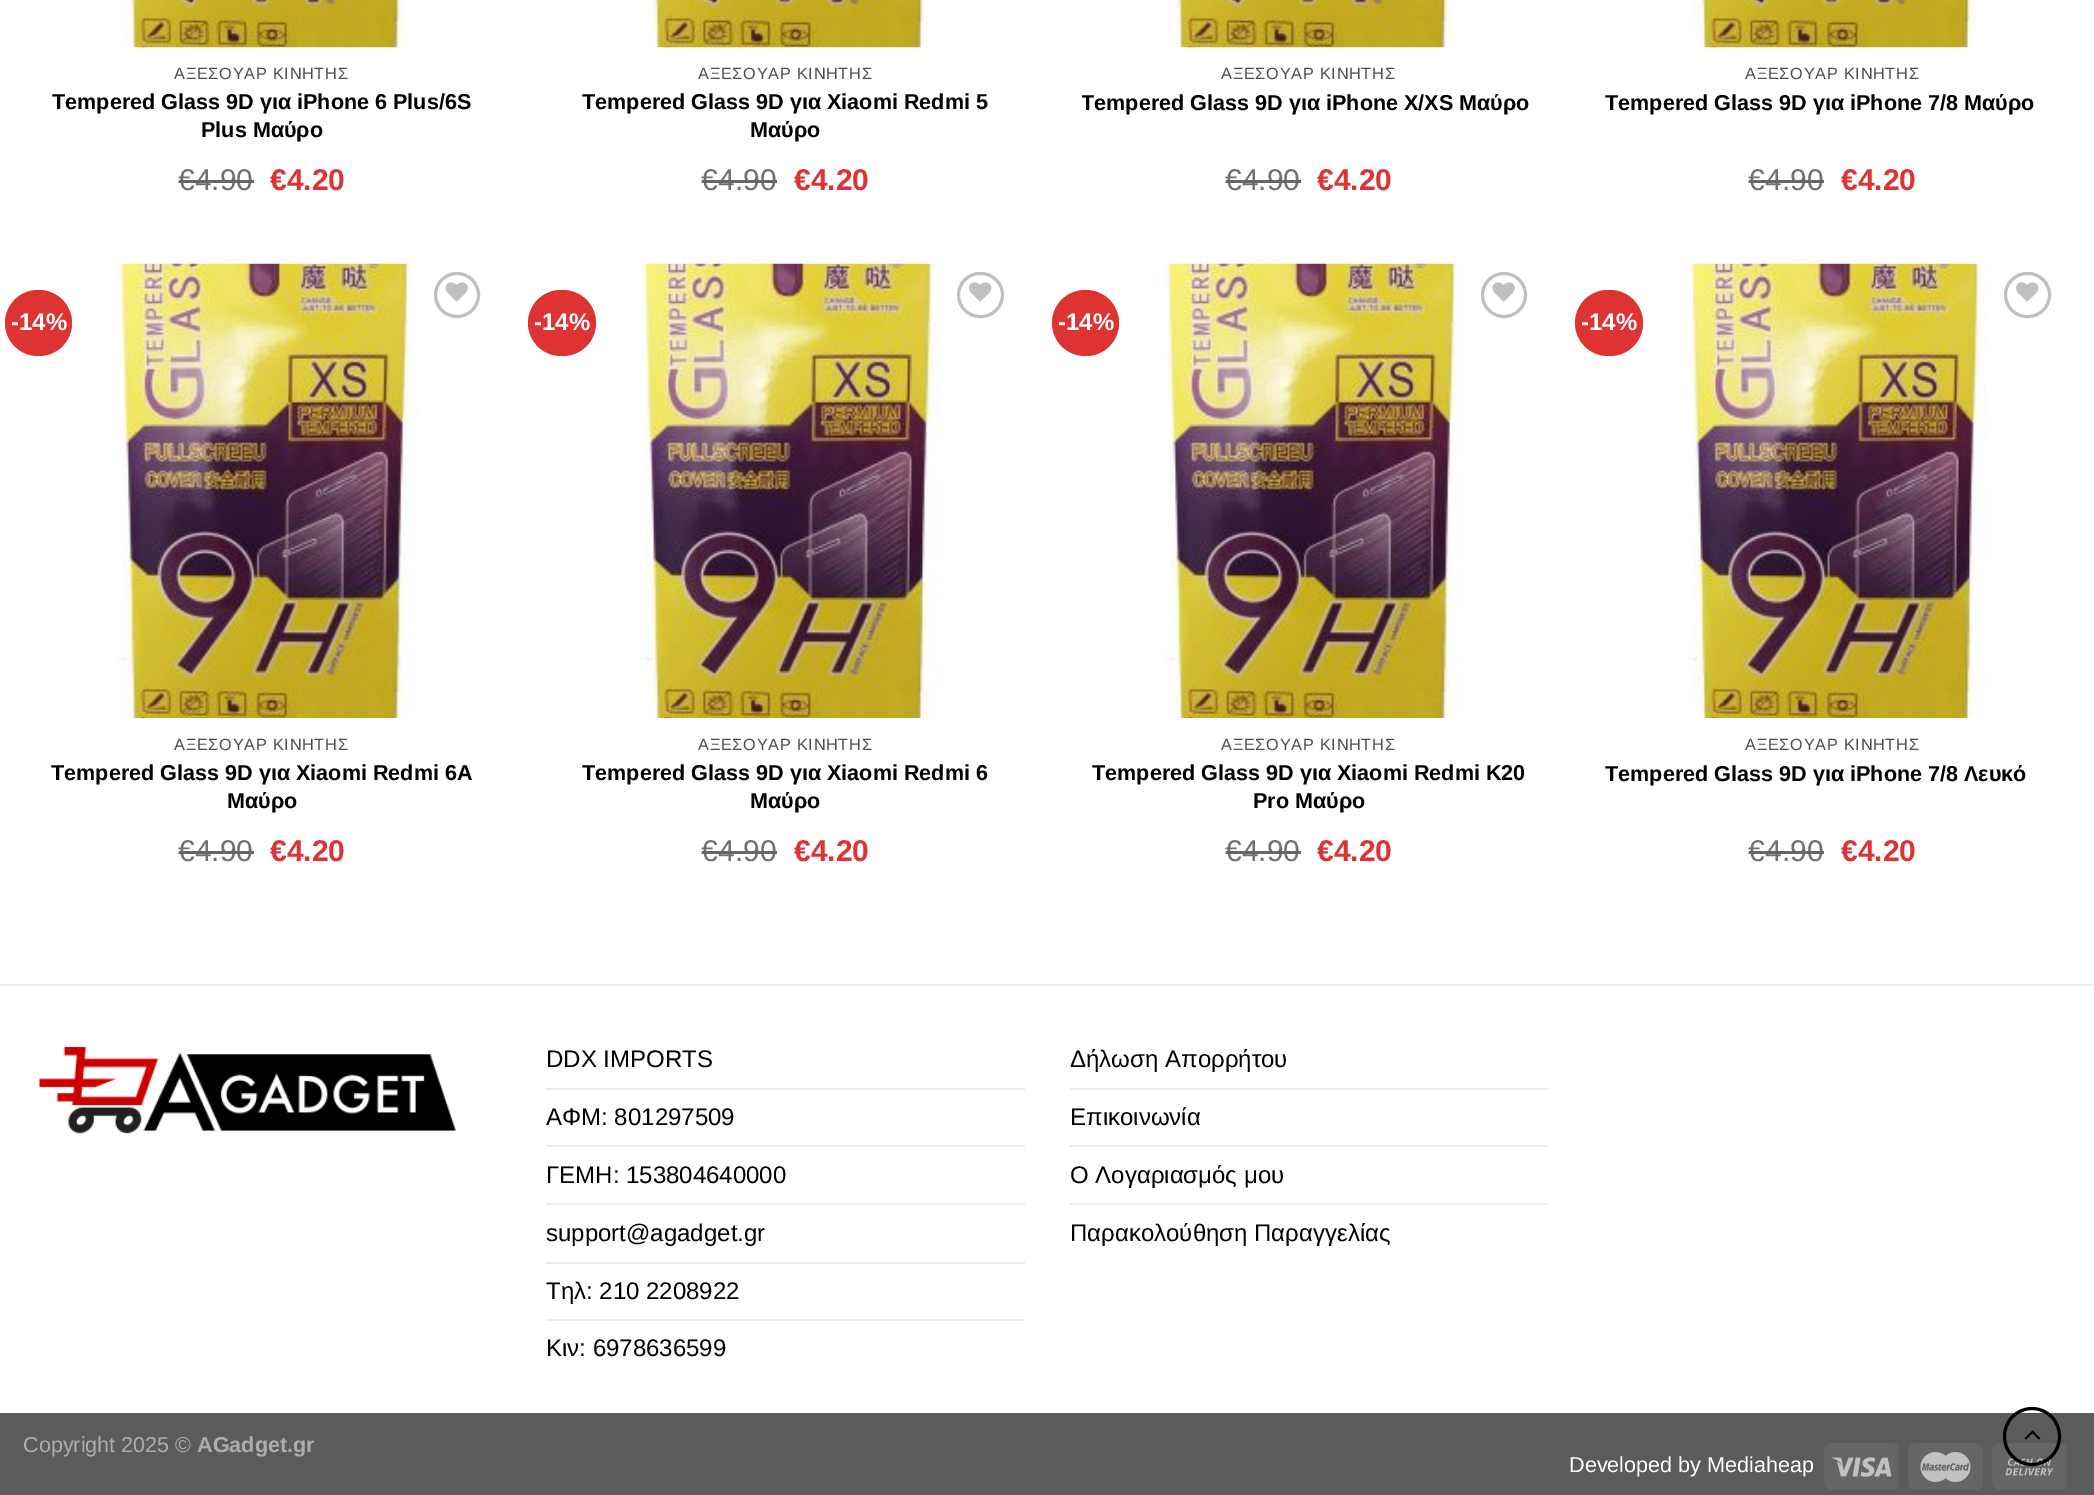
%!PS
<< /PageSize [2094 1495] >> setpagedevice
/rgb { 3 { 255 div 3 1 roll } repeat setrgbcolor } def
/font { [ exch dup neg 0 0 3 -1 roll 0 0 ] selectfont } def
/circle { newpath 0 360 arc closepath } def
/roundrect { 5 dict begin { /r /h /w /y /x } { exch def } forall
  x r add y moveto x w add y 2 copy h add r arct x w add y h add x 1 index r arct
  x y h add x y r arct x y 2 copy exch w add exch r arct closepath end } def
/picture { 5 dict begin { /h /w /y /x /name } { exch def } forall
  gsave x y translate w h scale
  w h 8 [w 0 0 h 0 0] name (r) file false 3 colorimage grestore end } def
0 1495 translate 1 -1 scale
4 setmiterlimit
255 255 255 rgb
0 0 2094 1495 rectfill
(img/1.rgb) 123 0 283 48 picture
(img/2.rgb) 646 0 283 48 picture
(img/1.rgb) 1170 0 283 48 picture
(img/2.rgb) 1693 0 283 48 picture
221 51 51 rgb
5 290 67 66 33 roundrect fill
(img/3.rgb) 116 263 302 455 picture
192 192 192 rgb
3 setlinewidth
457 295 21.5 circle stroke
(img/4.rgb) 445 282 23 20 picture
221 51 51 rgb
528 290 68 66 33 roundrect fill
(img/5.rgb) 640 263 302 455 picture
192 192 192 rgb
958.5 273.5 44 43 21.5 roundrect stroke
(img/6.rgb) 969 282 23 20 picture
221 51 51 rgb
1052 290 67 66 33 roundrect fill
(img/3.rgb) 1163 263 302 455 picture
192 192 192 rgb
1504 295 21.5 circle stroke
(img/4.rgb) 1492 282 23 20 picture
221 51 51 rgb
1575 290 68 66 33 roundrect fill
(img/5.rgb) 1687 263 302 455 picture
192 192 192 rgb
2005.5 273.5 44 43 21.5 roundrect stroke
(img/6.rgb) 2016 282 23 20 picture
242 242 242 rgb
0 984 2094 2 rectfill
(img/7.rgb) 39 1046 417 88 picture
[
  [546 1088 479 2 236 236 236]
  [546 1145 479 2 236 236 236]
  [546 1203 479 2 236 236 236]
  [546 1262 479 2 236 236 236]
  [546 1319 479 2 236 236 236]
  [1070 1088 478 2 236 236 236]
  [1070 1145 478 2 236 236 236]
  [1070 1203 478 2 236 236 236]
  [0 1413 2094 82 91 91 91]
] { aload pop rgb rectfill } forall
101 101 101 rgb
1824 1443 75 47 8 roundrect fill
(img/8.rgb) 1832 1457 60 20 picture
1908 1443 75 47 8 roundrect fill
(img/9.rgb) 1920 1452 51 30 picture
1992 1443 75 47 8 roundrect fill
(img/10.rgb) 2005 1458 49 18 picture
0 0 0 rgb
2004.5 1408.5 55 56 27.5 roundrect stroke
(img/11.rgb) 2024 1430 17 10 picture
/LiberationSans-Regular 16.25 font
77 77 77 rgb
174 79 moveto 0.75 0 (ΑΞΕΣΟΥΑΡ ΚΙΝΗΤΗΣ) ashow
/LiberationSans-Bold 21.6 font
0 0 0 rgb
52 109 moveto (Tempered Glass 9D για iPhone 6 Plus/6S) show
201 137 moveto (Plus Μαύρο) show
/LiberationSans-Regular 30 font
112 112 112 rgb
178 190 moveto (€4.90) show
102 102 102 rgb
179 180 75 3 rectfill
/LiberationSans-Bold 30 font
221 51 51 rgb
270 190 moveto (€4.20) show
/LiberationSans-Regular 16.25 font
77 77 77 rgb
698 79 moveto 0.75 0 (ΑΞΕΣΟΥΑΡ ΚΙΝΗΤΗΣ) ashow
/LiberationSans-Bold 21.6 font
0 0 0 rgb
582 109 moveto (Tempered Glass 9D για Xiaomi Redmi 5) show
750 137 moveto (Μαύρο) show
/LiberationSans-Regular 30 font
112 112 112 rgb
701 190 moveto (€) show
102 102 102 rgb
702 180 17 3 rectfill
112 112 112 rgb
718 190 moveto (4.90) show
102 102 102 rgb
719 180 58 3 rectfill
/LiberationSans-Bold 30 font
221 51 51 rgb
794 190 moveto (€4.20) show
/LiberationSans-Regular 16.25 font
77 77 77 rgb
1221 79 moveto 0.75 0 (ΑΞΕΣΟΥΑΡ ΚΙΝΗΤΗΣ) ashow
gsave
1082 63 454 87 rectclip
/LiberationSans-Bold 21.6 font
0 0 0 rgb
1081 110 moveto (Tempered Glass 9D για iPhone X/XS Μαύρο) show
grestore
/LiberationSans-Regular 30 font
112 112 112 rgb
1225 190 moveto (€4.90) show
102 102 102 rgb
1226 180 75 3 rectfill
/LiberationSans-Bold 30 font
221 51 51 rgb
1317 190 moveto (€4.20) show
/LiberationSans-Regular 16.25 font
77 77 77 rgb
1745 79 moveto 0.75 0 (ΑΞΕΣΟΥΑΡ ΚΙΝΗΤΗΣ) ashow
/LiberationSans-Bold 21.6 font
0 0 0 rgb
1605 110 moveto (Tempered Glass 9D για iPhone 7/8 Μαύρο) show
/LiberationSans-Regular 30 font
112 112 112 rgb
1748 190 moveto (€) show
102 102 102 rgb
1749 180 17 3 rectfill
112 112 112 rgb
1765 190 moveto (4.90) show
102 102 102 rgb
1766 180 58 3 rectfill
/LiberationSans-Bold 30 font
221 51 51 rgb
1841 190 moveto (€4.20) show
/LiberationSans-Bold 24 font
255 255 255 rgb
11 330 moveto (-14%) show
/LiberationSans-Regular 16.25 font
77 77 77 rgb
174 750 moveto 0.75 0 (ΑΞΕΣΟΥΑΡ ΚΙΝΗΤΗΣ) ashow
/LiberationSans-Bold 21.6 font
0 0 0 rgb
51 780 moveto (Tempered Glass 9D για Xiaomi Redmi 6A) show
227 808 moveto (Μαύρο) show
/LiberationSans-Regular 30 font
112 112 112 rgb
178 861 moveto (€4.90) show
102 102 102 rgb
179 851 75 3 rectfill
/LiberationSans-Bold 30 font
221 51 51 rgb
270 861 moveto (€4.20) show
/LiberationSans-Bold 24 font
255 255 255 rgb
534 330 moveto (-14%) show
/LiberationSans-Regular 16.25 font
77 77 77 rgb
698 750 moveto 0.75 0 (ΑΞΕΣΟΥΑΡ ΚΙΝΗΤΗΣ) ashow
/LiberationSans-Bold 21.6 font
0 0 0 rgb
582 780 moveto (Tempered Glass 9D για Xiaomi Redmi 6) show
750 808 moveto (Μαύρο) show
/LiberationSans-Regular 30 font
112 112 112 rgb
701 861 moveto (€) show
102 102 102 rgb
702 851 17 3 rectfill
112 112 112 rgb
718 861 moveto (4.90) show
102 102 102 rgb
719 851 58 3 rectfill
/LiberationSans-Bold 30 font
221 51 51 rgb
794 861 moveto (€4.20) show
/LiberationSans-Bold 24 font
255 255 255 rgb
1058 330 moveto (-14%) show
/LiberationSans-Regular 16.25 font
77 77 77 rgb
1221 750 moveto 0.75 0 (ΑΞΕΣΟΥΑΡ ΚΙΝΗΤΗΣ) ashow
/LiberationSans-Bold 21.6 font
0 0 0 rgb
1092 780 moveto (Tempered Glass 9D για Xiaomi Redmi K20) show
1253 808 moveto (Pro Μαύρο) show
/LiberationSans-Regular 30 font
112 112 112 rgb
1225 861 moveto (€4.90) show
102 102 102 rgb
1226 851 75 3 rectfill
/LiberationSans-Bold 30 font
221 51 51 rgb
1317 861 moveto (€4.20) show
/LiberationSans-Bold 24 font
255 255 255 rgb
1581 330 moveto (-14%) show
/LiberationSans-Regular 16.25 font
77 77 77 rgb
1745 750 moveto 0.75 0 (ΑΞΕΣΟΥΑΡ ΚΙΝΗΤΗΣ) ashow
/LiberationSans-Bold 21.6 font
0 0 0 rgb
1605 781 moveto (Tempered Glass 9D για iPhone 7/8 Λευκό) show
/LiberationSans-Regular 30 font
112 112 112 rgb
1748 861 moveto (€) show
102 102 102 rgb
1749 851 17 3 rectfill
112 112 112 rgb
1765 861 moveto (4.90) show
102 102 102 rgb
1766 851 58 3 rectfill
/LiberationSans-Bold 30 font
221 51 51 rgb
1841 861 moveto (€4.20) show
/LiberationSans-Regular 24 font
0 0 0 rgb
[
  [(DDX IMPORTS) 546 1067]
  [(ΑΦΜ: 801297509) 546 1125]
  [(ΓΕΜΗ: 153804640000) 546 1183]
  [(support@agadget.gr) 546 1241]
  [(Τηλ: 210 2208922) 546 1299]
  [(Κιν: 6978636599) 546 1356]
  [(Δήλωση Απορρήτου) 1070 1067]
  [(Επικοινωνία) 1070 1125]
  [(Ο Λογαριασμός μου) 1070 1183]
  [(Παρακολούθηση Παραγγελίας) 1070 1241]
] { aload pop moveto show } forall
/LiberationSans-Regular 21.6 font
173 173 173 rgb
23 1452 moveto (Copyright 2025 ©) show
/LiberationSans-Bold 21.6 font
197 1452 moveto (AGadget.gr) show
/LiberationSans-Regular 21.6 font
255 255 255 rgb
1569 1472 moveto (Developed by Mediaheap) show
showpage
